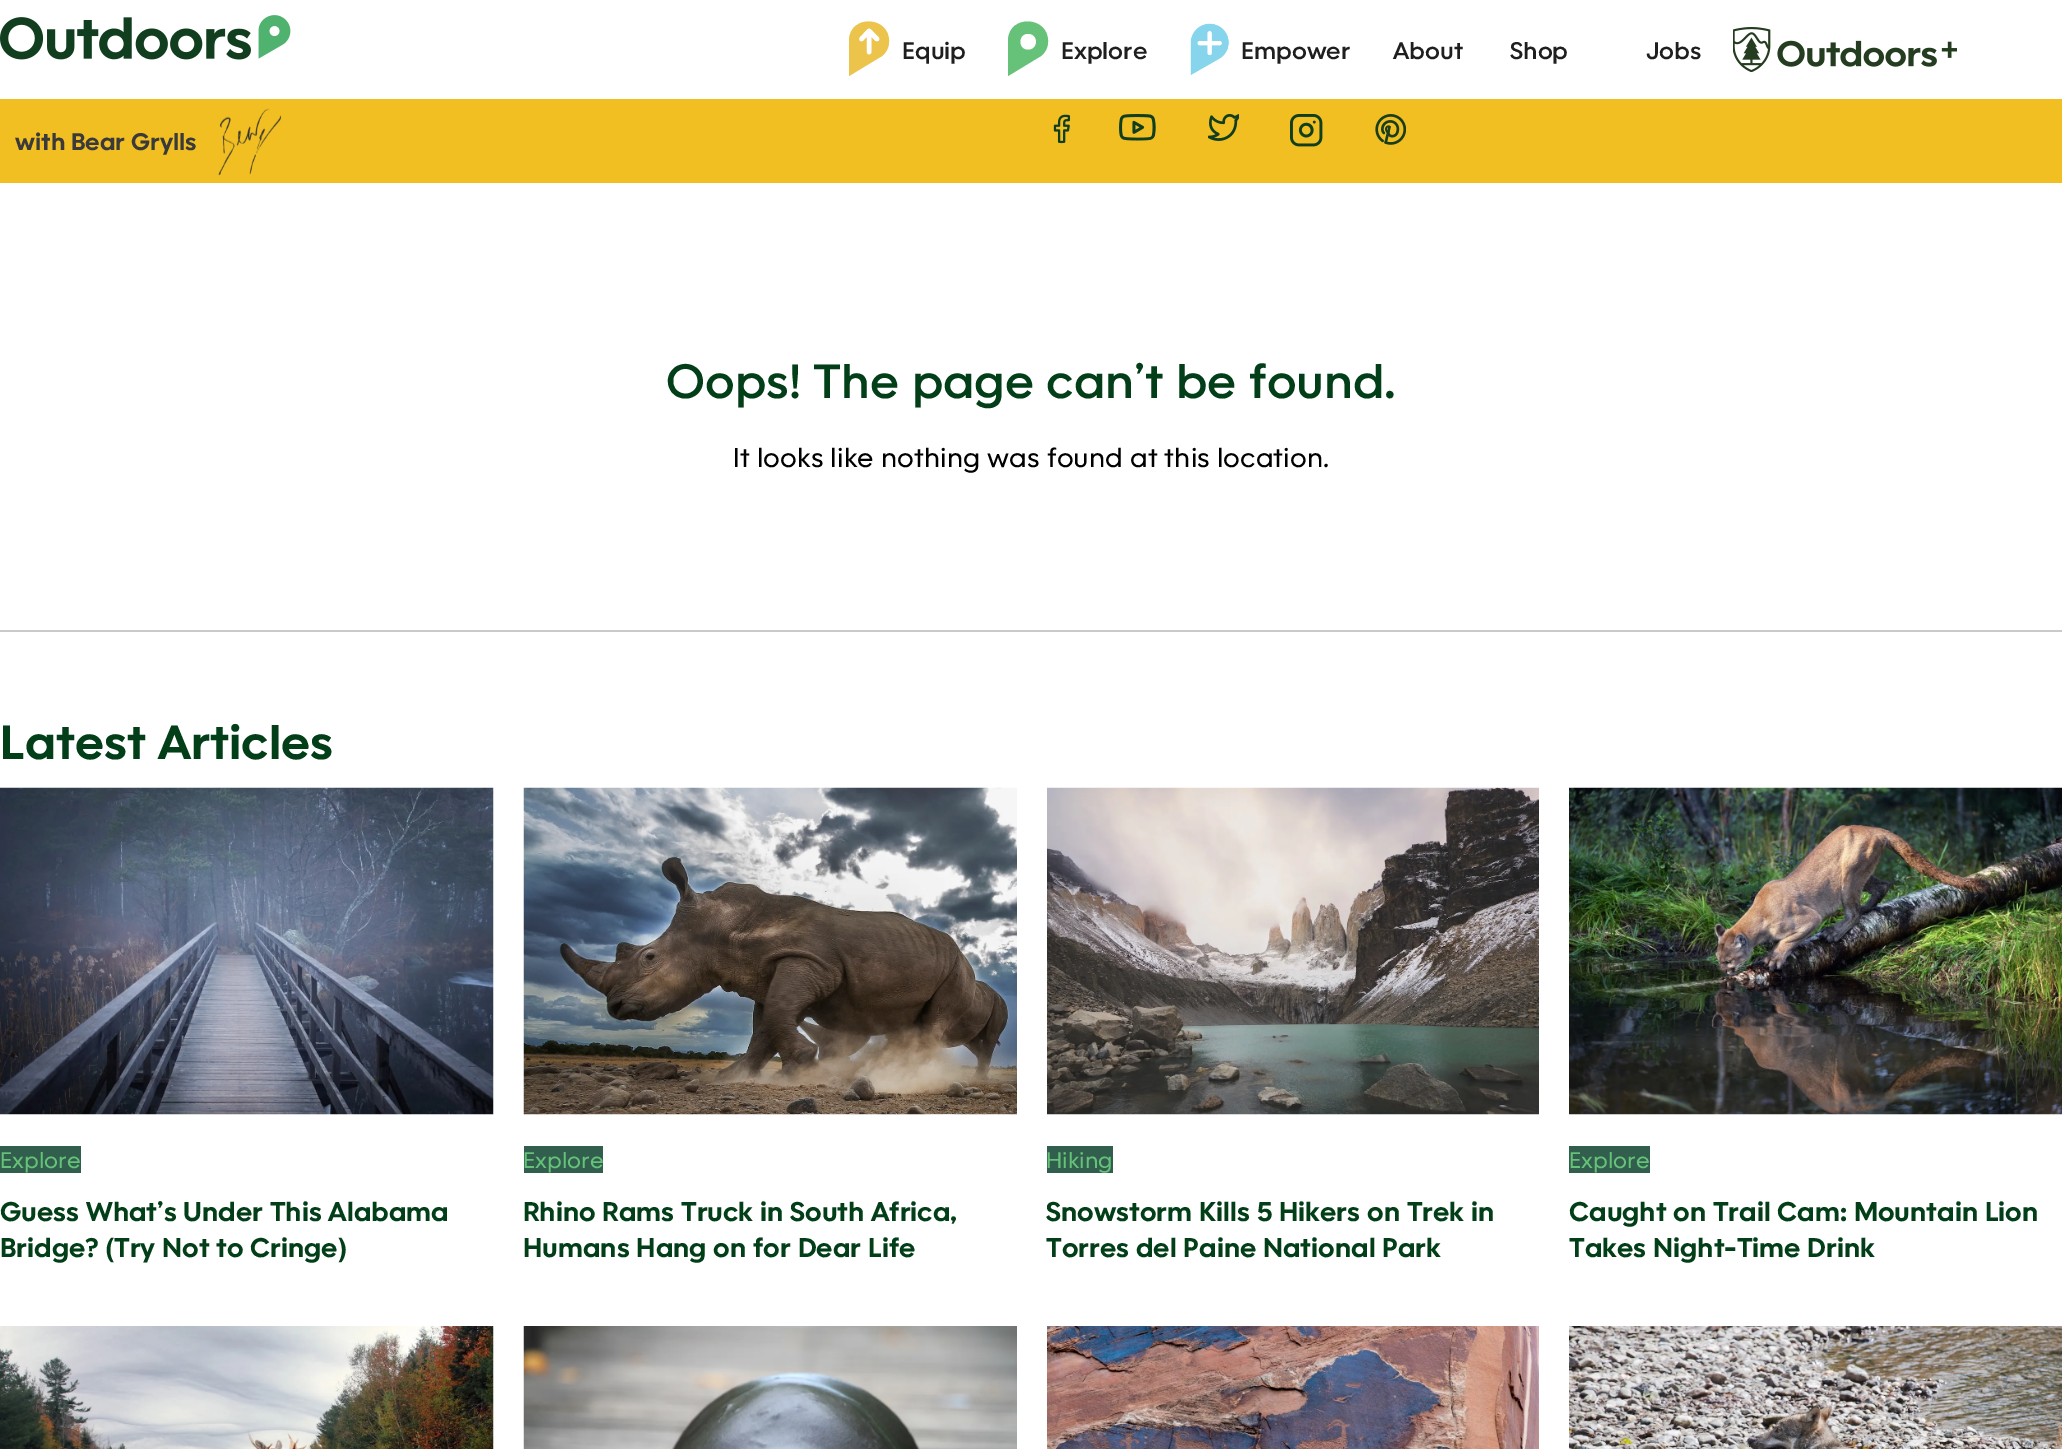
%!PS
<< /PageSize [2062 1449] >> setpagedevice
/rgb { 3 { 255 div 3 1 roll } repeat setrgbcolor } def
/font { [ exch dup neg 0 0 3 -1 roll 0 0 ] selectfont } def
/picture { 5 dict begin { /h /w /y /x /name } { exch def } forall
  gsave x y translate w h scale
  w h 8 [w 0 0 h 0 0] name (r) file false 3 colorimage grestore end } def
0 1449 translate 1 -1 scale
4 setmiterlimit
255 255 255 rgb
0 0 2062 1449 rectfill
(img/1.rgb) 0 15 291 45 picture
236 195 75 rgb
849 40 moveto 849 76 lineto 882 56 lineto 886 53 889 48 889 42 curveto 890 16 850 14 849 40 curveto closepath fill
255 255 255 rgb
4.6 setlinewidth
1 setlinecap
869 31 moveto 869 52 lineto 869 31 moveto 877 39 lineto 869 31 moveto 861.5 39 lineto stroke
102 194 121 rgb
1008 40 moveto 1008 76 lineto 1041 56 lineto 1045 53 1048 48 1048 42 curveto 1049 16 1009 14 1008 40 curveto closepath fill
255 255 255 rgb
1028 49.5 moveto 1038.5 49.5 1038.5 34 1028 34 curveto 1018 34 1018 49.5 1028 49.5 curveto closepath fill
(img/2.rgb) 1190 23 39 52 picture
(img/3.rgb) 1733 27 224 45 picture
242 191 34 rgb
0 99 2062 84 rectfill
(img/4.rgb) 218 108 64 68 picture
(img/5.rgb) 1053 114 18 30 picture
(img/6.rgb) 1119 114 37 27 picture
(img/7.rgb) 1208 114 31 27 picture
(img/8.rgb) 1290 114 33 33 picture
(img/9.rgb) 1375 114 31 31 picture
202 202 202 rgb
0 630 2062 2 rectfill
(img/10.rgb) 0 787 494 328 picture
49 94 77 rgb
0 1146 81 27 rectfill
(img/11.rgb) 523 787 494 328 picture
524 1146 79 27 rectfill
(img/12.rgb) 1047 787 492 328 picture
1047 1146 66 27 rectfill
(img/13.rgb) 1569 787 493 328 picture
1569 1146 81 27 rectfill
(img/14.rgb) 0 1326 494 123 picture
(img/15.rgb) 523 1326 494 123 picture
(img/16.rgb) 1047 1326 492 123 picture
(img/17.rgb) 1569 1326 493 123 picture
/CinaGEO-Medium 24 font
31 31 31 rgb
[
  [(Equip) 902 59]
  [(Explore) 1061 59]
  [(Empower) 1241 59]
  [(About) 1393 59]
  [(Shop) 1510 59]
  [(Jobs) 1646 59]
] { aload pop moveto show } forall
/CinaGEO-SemiBold 24 font
58 58 58 rgb
15 150 moveto (with Bear Grylls) show
/CinaGEO-Medium 48 font
2 62 23 rgb
666 398 moveto (Oops! The page can’t be found.) show
/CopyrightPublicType-Regular 27 font
0 0 0 rgb
733 467 moveto (It looks like nothing was found at this location.) show
/CinaGEO-SemiBold 48 font
2 62 23 rgb
0 759 moveto (Latest Articles) show
/CopyrightPublicType-Regular 22.5 font
102 194 121 rgb
0 1168 moveto (Explore) show
/CinaGEO-SemiBold 27 font
2 62 23 rgb
0 1221 moveto (Guess What’s Under This Alabama) show
0 1257 moveto (Bridge? \(Try Not to Cringe\)) show
/CopyrightPublicType-Regular 22.5 font
102 194 121 rgb
523 1168 moveto (Explore) show
/CinaGEO-SemiBold 27 font
2 62 23 rgb
523 1221 moveto (Rhino Rams Truck in South Africa,) show
523 1257 moveto (Humans Hang on for Dear Life) show
/CopyrightPublicType-Regular 22.5 font
102 194 121 rgb
1046 1168 moveto (Hiking) show
/CinaGEO-SemiBold 27 font
2 62 23 rgb
1046 1221 moveto (Snowstorm Kills 5 Hikers on Trek in) show
1046 1257 moveto (Torres del Paine National Park) show
/CopyrightPublicType-Regular 22.5 font
102 194 121 rgb
1569 1168 moveto (Explore) show
/CinaGEO-SemiBold 27 font
2 62 23 rgb
1569 1221 moveto (Caught on Trail Cam: Mountain Lion) show
1569 1257 moveto (Takes Night-Time Drink) show
showpage
